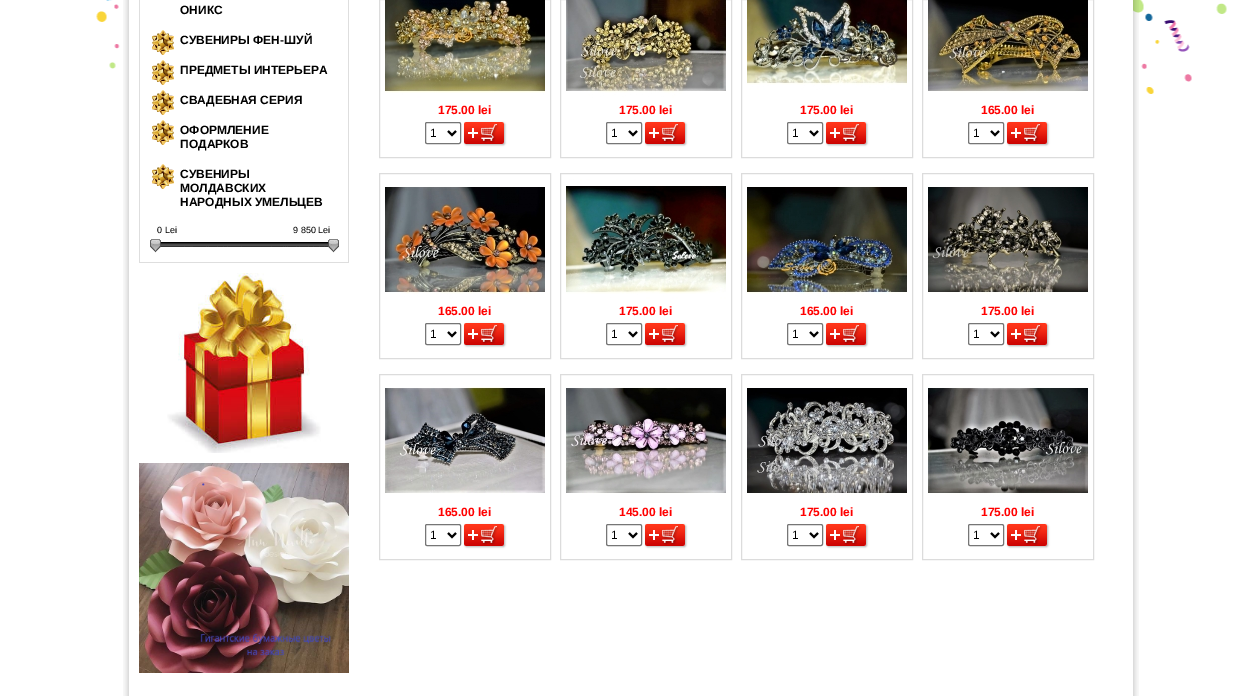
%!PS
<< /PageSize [1259 696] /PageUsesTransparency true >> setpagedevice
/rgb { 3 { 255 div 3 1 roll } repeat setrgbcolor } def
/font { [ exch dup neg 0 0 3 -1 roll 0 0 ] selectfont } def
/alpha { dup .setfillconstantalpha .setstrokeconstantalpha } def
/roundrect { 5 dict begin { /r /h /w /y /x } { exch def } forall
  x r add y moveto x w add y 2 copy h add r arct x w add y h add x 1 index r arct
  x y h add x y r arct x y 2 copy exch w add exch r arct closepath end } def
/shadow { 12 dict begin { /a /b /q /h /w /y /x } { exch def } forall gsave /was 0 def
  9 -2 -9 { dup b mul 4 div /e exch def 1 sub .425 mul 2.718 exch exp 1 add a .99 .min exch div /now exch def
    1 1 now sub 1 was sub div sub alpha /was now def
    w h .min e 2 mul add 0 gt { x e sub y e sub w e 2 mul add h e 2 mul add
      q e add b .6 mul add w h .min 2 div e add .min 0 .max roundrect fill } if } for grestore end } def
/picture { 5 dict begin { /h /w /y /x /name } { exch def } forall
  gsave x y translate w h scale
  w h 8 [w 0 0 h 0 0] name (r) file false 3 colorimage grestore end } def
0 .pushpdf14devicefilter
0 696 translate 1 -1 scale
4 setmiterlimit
255 255 255 rgb
0 0 1259 696 rectfill
(img/1.rgb) 96 0 1131 94 picture
(img/2.rgb) 123 0 1016 673 picture
[
  [348 0 1 263 222 222 222]
  [139 262 210 1 222 222 222]
  [139 0 1 263 222 222 222]
] { aload pop rgb rectfill } forall
(img/3.rgb) 152 30 22 25 picture
(img/3.rgb) 152 60 22 25 picture
(img/3.rgb) 152 90 22 25 picture
(img/3.rgb) 152 120 22 25 picture
(img/3.rgb) 152 164 22 25 picture
(img/5.rgb) 159 242 171 5 picture
(img/4.rgb) 150 239 11 14 picture
(img/6.rgb) 328 239 11 14 picture
(img/7.rgb) 167 273 154 180 picture
(img/8.rgb) 139 463 210 210 picture
220 220 220 rgb
379.5 -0.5 171 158 rectstroke
(img/9.rgb) 385 0 160 98 picture
118 118 118 rgb
425.5 122.5 35 21 1.5 roundrect stroke
0 0 0 rgb
2 setlinewidth
448 131 moveto 452 135 lineto 456 131 lineto stroke
465 123 40 22 2 1 0.3 shadow
(img/10.rgb) 464 122 40 22 picture
220 220 220 rgb
1 setlinewidth
560.5 -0.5 171 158 rectstroke
(img/11.rgb) 566 0 160 98 picture
118 118 118 rgb
606.5 122.5 35 21 1.5 roundrect stroke
0 0 0 rgb
2 setlinewidth
629 131 moveto 633 135 lineto 637 131 lineto stroke
646 123 40 22 2 1 0.3 shadow
(img/10.rgb) 645 122 40 22 picture
220 220 220 rgb
1 setlinewidth
741.5 -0.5 171 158 rectstroke
(img/12.rgb) 747 0 160 98 picture
118 118 118 rgb
787.5 122.5 35 21 1.5 roundrect stroke
0 0 0 rgb
2 setlinewidth
810 131 moveto 814 135 lineto 818 131 lineto stroke
827 123 40 22 2 1 0.3 shadow
(img/10.rgb) 826 122 40 22 picture
220 220 220 rgb
1 setlinewidth
922.5 -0.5 171 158 rectstroke
(img/13.rgb) 928 0 160 98 picture
118 118 118 rgb
968.5 122.5 35 21 1.5 roundrect stroke
0 0 0 rgb
2 setlinewidth
991 131 moveto 995 135 lineto 999 131 lineto stroke
1008 123 40 22 2 1 0.3 shadow
(img/10.rgb) 1007 122 40 22 picture
220 220 220 rgb
1 setlinewidth
379.5 173.5 171 185 rectstroke
(img/14.rgb) 385 179 160 120 picture
118 118 118 rgb
425.5 323.5 35 21 1.5 roundrect stroke
0 0 0 rgb
2 setlinewidth
448 332 moveto 452 336 lineto 456 332 lineto stroke
465 324 40 22 2 1 0.3 shadow
(img/10.rgb) 464 323 40 22 picture
220 220 220 rgb
1 setlinewidth
560.5 173.5 171 185 rectstroke
(img/15.rgb) 566 179 160 120 picture
118 118 118 rgb
606.5 323.5 35 21 1.5 roundrect stroke
0 0 0 rgb
2 setlinewidth
629 332 moveto 633 336 lineto 637 332 lineto stroke
646 324 40 22 2 1 0.3 shadow
(img/10.rgb) 645 323 40 22 picture
220 220 220 rgb
1 setlinewidth
741.5 173.5 171 185 rectstroke
(img/16.rgb) 747 179 160 120 picture
118 118 118 rgb
787.5 323.5 35 21 1.5 roundrect stroke
0 0 0 rgb
2 setlinewidth
810 332 moveto 814 336 lineto 818 332 lineto stroke
827 324 40 22 2 1 0.3 shadow
(img/10.rgb) 826 323 40 22 picture
220 220 220 rgb
1 setlinewidth
922.5 173.5 171 185 rectstroke
(img/17.rgb) 928 179 160 120 picture
118 118 118 rgb
968.5 323.5 35 21 1.5 roundrect stroke
0 0 0 rgb
2 setlinewidth
991 332 moveto 995 336 lineto 999 332 lineto stroke
1008 324 40 22 2 1 0.3 shadow
(img/10.rgb) 1007 323 40 22 picture
220 220 220 rgb
1 setlinewidth
379.5 374.5 171 185 rectstroke
(img/18.rgb) 385 380 160 120 picture
118 118 118 rgb
425.5 524.5 35 21 1.5 roundrect stroke
0 0 0 rgb
2 setlinewidth
448 533 moveto 452 537 lineto 456 533 lineto stroke
465 525 40 22 2 1 0.3 shadow
(img/10.rgb) 464 524 40 22 picture
220 220 220 rgb
1 setlinewidth
560.5 374.5 171 185 rectstroke
(img/19.rgb) 566 380 160 120 picture
118 118 118 rgb
606.5 524.5 35 21 1.5 roundrect stroke
0 0 0 rgb
2 setlinewidth
629 533 moveto 633 537 lineto 637 533 lineto stroke
646 525 40 22 2 1 0.3 shadow
(img/10.rgb) 645 524 40 22 picture
220 220 220 rgb
1 setlinewidth
741.5 374.5 171 185 rectstroke
(img/20.rgb) 747 380 160 120 picture
118 118 118 rgb
787.5 524.5 35 21 1.5 roundrect stroke
0 0 0 rgb
2 setlinewidth
810 533 moveto 814 537 lineto 818 533 lineto stroke
827 525 40 22 2 1 0.3 shadow
(img/10.rgb) 826 524 40 22 picture
220 220 220 rgb
1 setlinewidth
922.5 374.5 171 185 rectstroke
(img/21.rgb) 928 380 160 120 picture
118 118 118 rgb
968.5 524.5 35 21 1.5 roundrect stroke
0 0 0 rgb
2 setlinewidth
991 533 moveto 995 537 lineto 999 533 lineto stroke
1008 525 40 22 2 1 0.3 shadow
(img/10.rgb) 1007 524 40 22 picture
(img/22.rgb) 123 673 1016 23 picture
/LiberationSans-Bold 12 font
[
  [(ОНИКС) 180 14]
  [(СУВЕНИРЫ ФЕН-ШУЙ) 180 44]
  [(ПРЕДМЕТЫ ИНТЕРЬЕРА) 180 74]
  [(СВАДЕБНАЯ СЕРИЯ) 180 104]
  [(ОФОРМЛЕНИЕ) 180 134]
  [(ПОДАРКОВ) 180 148]
  [(СУВЕНИРЫ) 180 178]
  [(МОЛДАВСКИХ) 180 192]
  [(НАРОДНЫХ УМЕЛЬЦЕВ) 180 206]
] { aload pop moveto show } forall
/LiberationSans-Regular 9 font
157 233 moveto (0 Lei) show
293 233 moveto (9 850 Lei) show
/LiberationSans-Bold 12 font
255 0 0 rgb
438 114 moveto (175.00 lei) show
/LiberationSans-Regular 12 font
0 0 0 rgb
430 137 moveto (1) show
/LiberationSans-Bold 12 font
255 0 0 rgb
619 114 moveto (175.00 lei) show
/LiberationSans-Regular 12 font
0 0 0 rgb
611 137 moveto (1) show
/LiberationSans-Bold 12 font
255 0 0 rgb
800 114 moveto (175.00 lei) show
/LiberationSans-Regular 12 font
0 0 0 rgb
792 137 moveto (1) show
/LiberationSans-Bold 12 font
255 0 0 rgb
981 114 moveto (165.00 lei) show
/LiberationSans-Regular 12 font
0 0 0 rgb
973 137 moveto (1) show
/LiberationSans-Bold 12 font
255 0 0 rgb
438 315 moveto (165.00 lei) show
/LiberationSans-Regular 12 font
0 0 0 rgb
430 338 moveto (1) show
/LiberationSans-Bold 12 font
255 0 0 rgb
619 315 moveto (175.00 lei) show
/LiberationSans-Regular 12 font
0 0 0 rgb
611 338 moveto (1) show
/LiberationSans-Bold 12 font
255 0 0 rgb
800 315 moveto (165.00 lei) show
/LiberationSans-Regular 12 font
0 0 0 rgb
792 338 moveto (1) show
/LiberationSans-Bold 12 font
255 0 0 rgb
981 315 moveto (175.00 lei) show
/LiberationSans-Regular 12 font
0 0 0 rgb
973 338 moveto (1) show
/LiberationSans-Bold 12 font
255 0 0 rgb
438 516 moveto (165.00 lei) show
/LiberationSans-Regular 12 font
0 0 0 rgb
430 539 moveto (1) show
/LiberationSans-Bold 12 font
255 0 0 rgb
619 516 moveto (145.00 lei) show
/LiberationSans-Regular 12 font
0 0 0 rgb
611 539 moveto (1) show
/LiberationSans-Bold 12 font
255 0 0 rgb
800 516 moveto (175.00 lei) show
/LiberationSans-Regular 12 font
0 0 0 rgb
792 539 moveto (1) show
/LiberationSans-Bold 12 font
255 0 0 rgb
981 516 moveto (175.00 lei) show
/LiberationSans-Regular 12 font
0 0 0 rgb
973 539 moveto (1) show
.poppdf14devicefilter showpage
